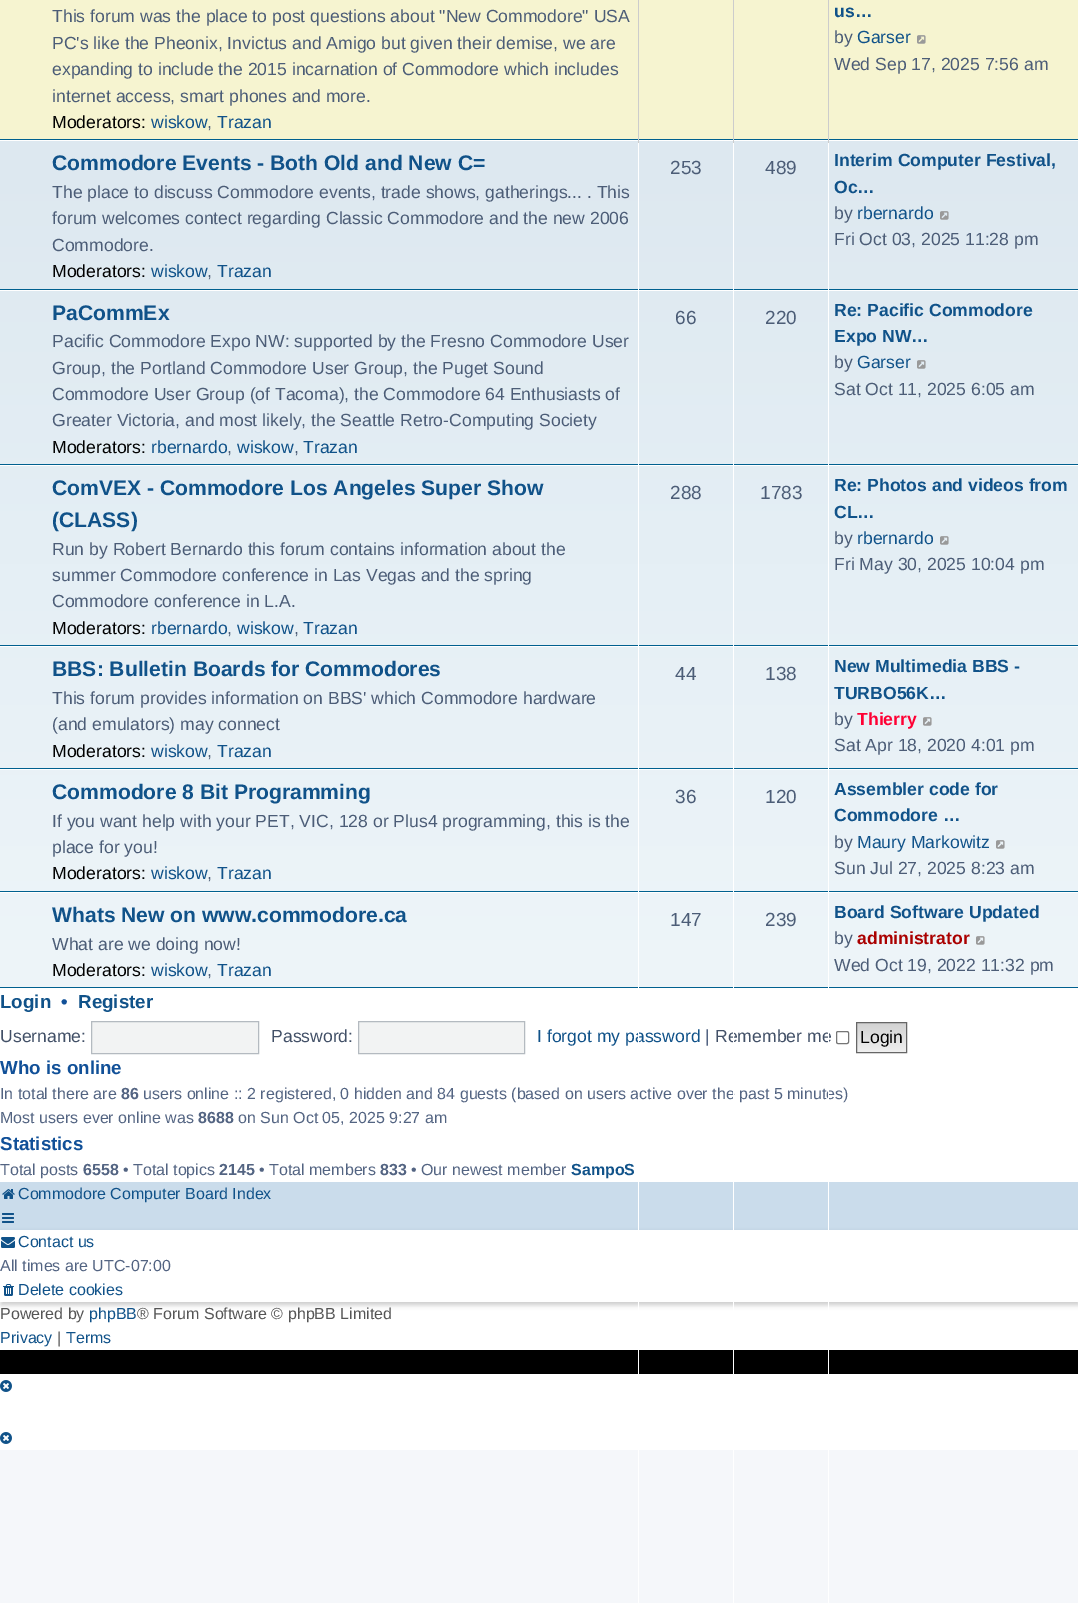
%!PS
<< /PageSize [1078 1603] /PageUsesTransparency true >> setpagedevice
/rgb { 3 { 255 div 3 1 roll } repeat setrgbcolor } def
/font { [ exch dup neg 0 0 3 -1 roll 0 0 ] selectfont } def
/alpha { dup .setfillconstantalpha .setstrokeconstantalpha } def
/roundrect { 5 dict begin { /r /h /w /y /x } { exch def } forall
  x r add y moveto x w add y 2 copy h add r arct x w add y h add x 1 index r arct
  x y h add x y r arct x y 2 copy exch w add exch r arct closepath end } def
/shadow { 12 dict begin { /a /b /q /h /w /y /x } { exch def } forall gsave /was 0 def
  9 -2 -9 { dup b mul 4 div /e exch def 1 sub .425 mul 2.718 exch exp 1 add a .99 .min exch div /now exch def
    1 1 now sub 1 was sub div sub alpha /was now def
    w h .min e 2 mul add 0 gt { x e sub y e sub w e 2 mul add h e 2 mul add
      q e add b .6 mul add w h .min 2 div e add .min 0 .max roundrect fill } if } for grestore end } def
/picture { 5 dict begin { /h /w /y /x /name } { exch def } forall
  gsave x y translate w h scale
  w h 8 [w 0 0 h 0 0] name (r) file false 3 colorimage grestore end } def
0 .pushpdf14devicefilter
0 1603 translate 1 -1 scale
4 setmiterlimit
245 247 250 rgb
0 0 1078 1603 rectfill
255 255 255 rgb
0 988 1078 462 rectfill
gsave 0 141 moveto 1078 141 lineto 1078 987 lineto 0 987 lineto closepath clip newpath
<< /ShadingType 2 /ColorSpace /DeviceRGB /Coords [539 -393 539 988] /Extend [true true] /Function << /FunctionType 2 /Domain [0 1] /C0 [0.824 0.878 0.922] /C1 [0.933 0.961 0.976] /N 1 >> >> shfill grestore
[
  [0 0 1078 139 246 244 208]
  [0 139 1078 1 0 96 143]
  [0 140 1078 1 255 255 255]
  [638 0 1 143 204 204 204]
  [733 0 1 143 204 204 204]
  [828 0 1 143 204 204 204]
] { aload pop rgb rectfill } forall
(img/1.rgb) 917 35 9 9 picture
0 96 143 rgb
0 289 1078 1 rectfill
(img/2.rgb) 940 211 9 9 picture
255 255 255 rgb
0 290 1078 1 rectfill
0 96 143 rgb
0 464 1078 1 rectfill
(img/3.rgb) 917 360 9 9 picture
255 255 255 rgb
0 465 1078 1 rectfill
0 96 143 rgb
0 645 1078 1 rectfill
(img/4.rgb) 940 536 9 9 picture
255 255 255 rgb
0 646 1078 1 rectfill
0 96 143 rgb
0 768 1078 1 rectfill
(img/5.rgb) 923 717 9 9 picture
255 255 255 rgb
0 769 1078 1 rectfill
0 96 143 rgb
0 891 1078 1 rectfill
(img/6.rgb) 996 840 9 9 picture
255 255 255 rgb
0 892 1078 1 rectfill
0 96 143 rgb
0 987 1078 1 rectfill
(img/7.rgb) 976 936 9 9 picture
242 243 243 rgb
91.5 1021.5 moveto 258.5 1021.5 lineto 258.5 1053.5 lineto 91.5 1053.5 lineto closepath gsave fill grestore
180 186 192 rgb
stroke
242 243 243 rgb
358.5 1021.5 moveto 524.5 1021.5 lineto 524.5 1053.5 lineto 358.5 1053.5 lineto closepath gsave fill grestore
180 186 192 rgb
stroke
118 118 118 rgb
836.5 1031.5 12 12 1.5 roundrect stroke
gsave 857 1023 moveto 906 1023 lineto 906 1052 lineto 857 1052 lineto closepath clip newpath
<< /ShadingType 2 /ColorSpace /DeviceRGB /Coords [882 1023 882 1052] /Extend [true true] /Function << /FunctionType 2 /Domain [0 1] /C0 [0.824 0.824 0.824] /C1 [0.937 0.937 0.937] /N 1 >> >> shfill grestore
102 102 102 rgb
856.5 1022.5 50 30 rectstroke
202 220 235 rgb
0 1182 1078 48 rectfill
(img/8.rgb) 2 1189 13 10 picture
(img/9.rgb) 2 1213 12 10 picture
0 0 0 rgb
1 1233 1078 72 0 2.5 0.2 shadow
255 255 255 rgb
0 1230 1078 72 rectfill
(img/10.rgb) 1 1237 14 11 picture
(img/11.rgb) 3 1284 11 12 picture
0 0 0 rgb
0 1350 1078 24 rectfill
(img/12.rgb) 0 1380 12 12 picture
(img/12.rgb) 0 1432 12 12 picture
/LiberationSans-Regular 17.6 font
76 93 119 rgb
[
  [(This forum was the place to post questions about "New Commodore" USA) 52 22]
  [(PC's like the Pheonix, Invictus and Amigo but given their demise, we are) 52 49]
  [(expanding to include the 2015 incarnation of Commodore which includes) 52 75]
  [(internet access, smart phones and more.) 52 102]
] { aload pop moveto show } forall
0 0 0 rgb
52 128 moveto (Moderators:) show
16 82 137 rgb
151 128 moveto (wiskow) show
76 93 119 rgb
207 128 moveto (,) show
16 82 137 rgb
217 128 moveto (Trazan) show
/LiberationSans-Bold 17.6 font
834 17 moveto (us…) show
/LiberationSans-Regular 17.6 font
76 93 119 rgb
834 43 moveto (by) show
16 82 137 rgb
857 43 moveto (Garser) show
76 93 119 rgb
834 70 moveto (Wed Sep 17, 2025 7:56 am) show
/LiberationSans-Bold 21.1 font
16 82 137 rgb
52 170 moveto (Commodore Events - Both Old and New C=) show
/LiberationSans-Regular 17.6 font
76 93 119 rgb
[
  [(The place to discuss Commodore events, trade shows, gatherings... . This) 52 198]
  [(forum welcomes contect regarding Classic Commodore and the new 2006) 52 224]
  [(Commodore.) 52 251]
] { aload pop moveto show } forall
0 0 0 rgb
52 277 moveto (Moderators:) show
16 82 137 rgb
151 277 moveto (wiskow) show
76 93 119 rgb
207 277 moveto (,) show
16 82 137 rgb
217 277 moveto (Trazan) show
/LiberationSans-Regular 19 font
76 93 119 rgb
670 174 moveto (253) show
765 174 moveto (489) show
/LiberationSans-Bold 17.6 font
16 82 137 rgb
834 166 moveto (Interim Computer Festival,) show
834 193 moveto (Oc…) show
/LiberationSans-Regular 17.6 font
76 93 119 rgb
834 219 moveto (by) show
16 82 137 rgb
857 219 moveto (rbernardo) show
76 93 119 rgb
834 245 moveto (Fri Oct 03, 2025 11:28 pm) show
/LiberationSans-Bold 21.1 font
16 82 137 rgb
52 320 moveto (PaCommEx) show
/LiberationSans-Regular 17.6 font
76 93 119 rgb
[
  [(Pacific Commodore Expo NW: supported by the Fresno Commodore User) 52 347]
  [(Group, the Portland Commodore User Group, the Puget Sound) 52 374]
  [(Commodore User Group \(of Tacoma\), the Commodore 64 Enthusiasts of) 52 400]
  [(Greater Victoria, and most likely, the Seattle Retro-Computing Society) 52 426]
] { aload pop moveto show } forall
0 0 0 rgb
52 453 moveto (Moderators:) show
16 82 137 rgb
151 453 moveto (rbernardo) show
76 93 119 rgb
227 453 moveto (,) show
16 82 137 rgb
237 453 moveto (wiskow) show
76 93 119 rgb
294 453 moveto (,) show
16 82 137 rgb
303 453 moveto (Trazan) show
/LiberationSans-Regular 19 font
76 93 119 rgb
675 324 moveto (66) show
765 324 moveto (220) show
/LiberationSans-Bold 17.6 font
16 82 137 rgb
834 316 moveto (Re: Pacific Commodore) show
834 342 moveto (Expo NW…) show
/LiberationSans-Regular 17.6 font
76 93 119 rgb
834 368 moveto (by) show
16 82 137 rgb
857 368 moveto (Garser) show
76 93 119 rgb
834 395 moveto (Sat Oct 11, 2025 6:05 am) show
/LiberationSans-Bold 21.1 font
16 82 137 rgb
52 495 moveto (ComVEX - Commodore Los Angeles Super Show) show
52 527 moveto (\(CLASS\)) show
/LiberationSans-Regular 17.6 font
76 93 119 rgb
[
  [(Run by Robert Bernardo this forum contains information about the) 52 555]
  [(summer Commodore conference in Las Vegas and the spring) 52 581]
  [(Commodore conference in L.A.) 52 607]
] { aload pop moveto show } forall
0 0 0 rgb
52 634 moveto (Moderators:) show
16 82 137 rgb
151 634 moveto (rbernardo) show
76 93 119 rgb
227 634 moveto (,) show
16 82 137 rgb
237 634 moveto (wiskow) show
76 93 119 rgb
294 634 moveto (,) show
16 82 137 rgb
303 634 moveto (Trazan) show
/LiberationSans-Regular 19 font
76 93 119 rgb
670 499 moveto (288) show
760 499 moveto (1783) show
/LiberationSans-Bold 17.6 font
16 82 137 rgb
834 491 moveto (Re: Photos and videos from) show
834 518 moveto (CL…) show
/LiberationSans-Regular 17.6 font
76 93 119 rgb
834 544 moveto (by) show
16 82 137 rgb
857 544 moveto (rbernardo) show
76 93 119 rgb
834 570 moveto (Fri May 30, 2025 10:04 pm) show
/LiberationSans-Bold 21.1 font
16 82 137 rgb
52 676 moveto (BBS: Bulletin Boards for Commodores) show
/LiberationSans-Regular 17.6 font
76 93 119 rgb
52 704 moveto (This forum provides information on BBS' which Commodore hardware) show
52 730 moveto (\(and emulators\) may connect) show
0 0 0 rgb
52 757 moveto (Moderators:) show
16 82 137 rgb
151 757 moveto (wiskow) show
76 93 119 rgb
207 757 moveto (,) show
16 82 137 rgb
217 757 moveto (Trazan) show
/LiberationSans-Regular 19 font
76 93 119 rgb
675 680 moveto (44) show
765 680 moveto (138) show
/LiberationSans-Bold 17.6 font
16 82 137 rgb
834 672 moveto (New Multimedia BBS -) show
834 699 moveto (TURBO56K…) show
/LiberationSans-Regular 17.6 font
76 93 119 rgb
834 725 moveto (by) show
/LiberationSans-Bold 17.6 font
255 0 51 rgb
857 725 moveto (Thierry) show
/LiberationSans-Regular 17.6 font
76 93 119 rgb
834 751 moveto (Sat Apr 18, 2020 4:01 pm) show
/LiberationSans-Bold 21.1 font
16 82 137 rgb
52 799 moveto (Commodore 8 Bit Programming) show
/LiberationSans-Regular 17.6 font
76 93 119 rgb
52 827 moveto (If you want help with your PET, VIC, 128 or Plus4 programming, this is the) show
52 853 moveto (place for you!) show
0 0 0 rgb
52 879 moveto (Moderators:) show
16 82 137 rgb
151 879 moveto (wiskow) show
76 93 119 rgb
207 879 moveto (,) show
16 82 137 rgb
217 879 moveto (Trazan) show
/LiberationSans-Regular 19 font
76 93 119 rgb
675 803 moveto (36) show
765 803 moveto (120) show
/LiberationSans-Bold 17.6 font
16 82 137 rgb
834 795 moveto (Assembler code for) show
834 821 moveto (Commodore …) show
/LiberationSans-Regular 17.6 font
76 93 119 rgb
834 848 moveto (by) show
16 82 137 rgb
857 848 moveto (Maury Markowitz) show
76 93 119 rgb
834 874 moveto (Sun Jul 27, 2025 8:23 am) show
/LiberationSans-Bold 21.1 font
16 82 137 rgb
52 922 moveto (Whats New on www.commodore.ca) show
/LiberationSans-Regular 17.6 font
76 93 119 rgb
52 950 moveto (What are we doing now!) show
0 0 0 rgb
52 976 moveto (Moderators:) show
16 82 137 rgb
151 976 moveto (wiskow) show
76 93 119 rgb
207 976 moveto (,) show
16 82 137 rgb
217 976 moveto (Trazan) show
/LiberationSans-Regular 19 font
76 93 119 rgb
670 926 moveto (147) show
765 926 moveto (239) show
/LiberationSans-Bold 17.6 font
16 82 137 rgb
834 918 moveto (Board Software Updated) show
/LiberationSans-Regular 17.6 font
76 93 119 rgb
834 944 moveto (by) show
/LiberationSans-Bold 17.6 font
170 0 0 rgb
857 944 moveto (administrator) show
/LiberationSans-Regular 17.6 font
76 93 119 rgb
834 971 moveto (Wed Oct 19, 2022 11:32 pm) show
/LiberationSans-Bold 18.75 font
16 82 137 rgb
0 1008 moveto (Login) show
17 80 152 rgb
61 1008 moveto (•) show
16 82 137 rgb
78 1008 moveto (Register) show
/LiberationSans-Regular 17.6 font
66 80 103 rgb
0 1042 moveto (Username:) show
271 1042 moveto (Password:) show
16 82 137 rgb
537 1042 moveto (I forgot my password) show
83 100 130 rgb
705 1042 moveto (|) show
66 80 103 rgb
715 1042 moveto (Remember me) show
0 0 0 rgb
860 1043 moveto (Login) show
/LiberationSans-Bold 18.75 font
17 80 152 rgb
0 1074 moveto (Who is online) show
/LiberationSans-Regular 16 font
83 100 130 rgb
0 1099 moveto (In total there are) show
/LiberationSans-Bold 16 font
121 1099 moveto (86) show
/LiberationSans-Regular 16 font
143 1099 moveto (users online :: 2 registered, 0 hidden and 84 guests \(based on users active over the past 5 minutes\)) show
[
  [828 143 1 1460 255 255 255]
  [733 143 1 1460 255 255 255]
  [638 143 1 1460 255 255 255]
] { aload pop rgb rectfill } forall
83 100 130 rgb
0 1123 moveto (Most users ever online was) show
/LiberationSans-Bold 16 font
198 1123 moveto (8688) show
/LiberationSans-Regular 16 font
238 1123 moveto (on Sun Oct 05, 2025 9:27 am) show
/LiberationSans-Bold 18.75 font
17 80 152 rgb
0 1150 moveto (Statistics) show
/LiberationSans-Regular 16 font
83 100 130 rgb
0 1175 moveto (Total posts) show
/LiberationSans-Bold 16 font
83 1175 moveto (6558) show
/LiberationSans-Regular 16 font
123 1175 moveto (• Total topics) show
/LiberationSans-Bold 16 font
219 1175 moveto (2145) show
/LiberationSans-Regular 16 font
259 1175 moveto (• Total members) show
/LiberationSans-Bold 16 font
380 1175 moveto (833) show
/LiberationSans-Regular 16 font
411 1175 moveto (• Our newest member) show
/LiberationSans-Bold 16 font
16 82 137 rgb
571 1175 moveto (SampoS) show
/LiberationSans-Regular 16 font
18 1199 moveto (Commodore Computer Board Index) show
18 1247 moveto (Contact us) show
83 100 130 rgb
0 1271 moveto (All times are UTC-07:00) show
16 82 137 rgb
18 1295 moveto (Delete cookies) show
85 85 85 rgb
0 1319 moveto (Powered by) show
16 82 137 rgb
89 1319 moveto (phpBB) show
85 85 85 rgb
137 1319 moveto (® Forum Software © phpBB Limited) show
16 82 137 rgb
0 1343 moveto (Privacy) show
85 85 85 rgb
57 1343 moveto (|) show
16 82 137 rgb
66 1343 moveto (Terms) show
.poppdf14devicefilter showpage
